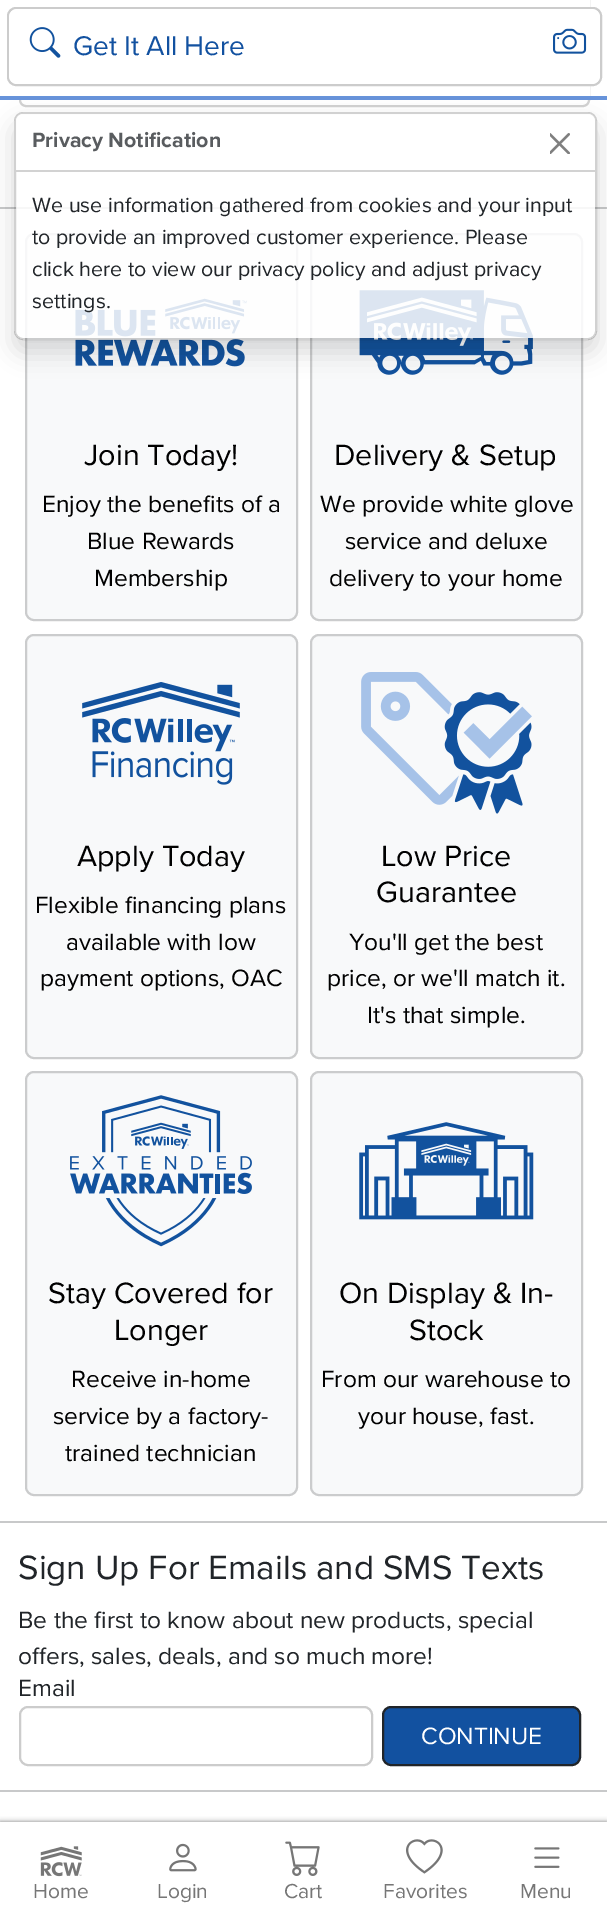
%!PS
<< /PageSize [607 1917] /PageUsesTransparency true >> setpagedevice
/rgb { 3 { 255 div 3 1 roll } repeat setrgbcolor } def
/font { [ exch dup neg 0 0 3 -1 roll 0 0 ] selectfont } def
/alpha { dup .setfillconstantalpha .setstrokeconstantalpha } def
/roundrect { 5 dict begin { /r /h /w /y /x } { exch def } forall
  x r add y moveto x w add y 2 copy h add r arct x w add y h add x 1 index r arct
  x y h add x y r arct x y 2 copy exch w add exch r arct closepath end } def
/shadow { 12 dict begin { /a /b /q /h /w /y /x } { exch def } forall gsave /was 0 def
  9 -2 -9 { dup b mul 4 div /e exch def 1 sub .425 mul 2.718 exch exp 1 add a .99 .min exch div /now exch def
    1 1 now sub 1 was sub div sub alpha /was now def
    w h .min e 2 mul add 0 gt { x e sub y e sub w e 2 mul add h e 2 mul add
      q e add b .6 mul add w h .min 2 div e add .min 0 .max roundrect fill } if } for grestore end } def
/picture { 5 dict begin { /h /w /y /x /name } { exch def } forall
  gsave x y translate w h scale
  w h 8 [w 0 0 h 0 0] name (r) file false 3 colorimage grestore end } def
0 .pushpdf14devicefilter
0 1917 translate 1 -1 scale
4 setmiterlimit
255 255 255 rgb
0 0 607 1917 rectfill
210 210 210 rgb
2 setlinewidth
20 -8 569 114 6 roundrect stroke
255 255 255 rgb
19 0 571 96 rectfill
103 147 218 rgb
0 96 607 4 rectfill
204 204 204 rgb
8 8 593 77 8 roundrect stroke
255 255 255 rgb
9 9 591 75 9 roundrect fill
(img/1.rgb) 29 27 32 31 picture
(img/2.rgb) 553 28 34 26 picture
200 201 202 rgb
0 207 607 2 rectfill
248 249 250 rgb
25 233 273 388 9 roundrect fill
0.18 alpha
0 0 0 rgb
26 234 271 386 8 roundrect stroke
1 alpha
(img/4.rgb) 75 298 172 69 picture
248 249 250 rgb
310 233 273 388 9 roundrect fill
0.18 alpha
0 0 0 rgb
311 234 271 386 8 roundrect stroke
1 alpha
(img/5.rgb) 359 290 174 85 picture
gsave
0 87 moveto 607 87 lineto 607 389 lineto 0 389 lineto closepath 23 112 moveto 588 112 lineto 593 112 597 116 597 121 curveto 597 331 lineto 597 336 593 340 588 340 curveto 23 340 lineto 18 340 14 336 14 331 curveto 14 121 lineto 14 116 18 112 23 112 curveto closepath eoclip newpath
14 124 583 228 9 12 0.15 shadow
grestore
0.85 alpha
255 255 255 rgb
16 114 579 224 7 roundrect fill
0.18 alpha
0 0 0 rgb
15 113 581 226 8 roundrect stroke
0.85 alpha
255 255 255 rgb
23 114 moveto 588 114 lineto 592 114 595 117 595 121 curveto 595 170 lineto 16 170 lineto 16 121 lineto 16 117 19 114 23 114 curveto closepath fill
1 alpha
210 210 210 rgb
16 170 579 2 rectfill
(img/3.rgb) 550 133 20 21 picture
248 249 250 rgb
25 634 273 425 9 roundrect fill
0.18 alpha
0 0 0 rgb
26 635 271 423 8 roundrect stroke
1 alpha
(img/6.rgb) 82 682 158 103 picture
248 249 250 rgb
310 634 273 425 9 roundrect fill
0.18 alpha
0 0 0 rgb
311 635 271 423 8 roundrect stroke
1 alpha
(img/7.rgb) 361 672 171 142 picture
248 249 250 rgb
25 1071 273 425 9 roundrect fill
0.18 alpha
0 0 0 rgb
26 1072 271 423 8 roundrect stroke
1 alpha
(img/8.rgb) 70 1095 182 152 picture
248 249 250 rgb
310 1071 273 425 9 roundrect fill
0.18 alpha
0 0 0 rgb
311 1072 271 423 8 roundrect stroke
1 alpha
(img/9.rgb) 359 1122 175 98 picture
200 201 202 rgb
0 1521 607 2 rectfill
204 204 204 rgb
20 1707 352 58 8 roundrect stroke
18 81 160 rgb
383 1707 197 58 8 roundrect gsave fill grestore
33 37 41 rgb
stroke
200 201 202 rgb
0 1790 607 2 rectfill
0 0 0 rgb
0 1822 607 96 0 2.5 0.5 shadow
255 255 255 rgb
0 1822 607 95 rectfill
(img/10.rgb) 40 1846 42 31 picture
(img/11.rgb) 169 1843 28 29 picture
(img/12.rgb) 285 1841 35 35 picture
(img/13.rgb) 406 1839 37 35 picture
(img/14.rgb) 534 1847 26 21 picture
/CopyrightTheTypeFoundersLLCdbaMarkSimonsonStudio-Regular 28 font
18 81 160 rgb
73 55 moveto (Get It All Here) show
/CopyrightTheTypeFoundersLLCdbaMarkSimonsonStudio-Bold 21.45 font
89 92 95 rgb
32 147 moveto (Privacy Notification) show
/CopyrightTheTypeFoundersLLCdbaMarkSimonsonStudio-Regular 21.45 font
33 37 41 rgb
[
  [(We use information gathered from cookies and your input) 32 212]
  [(to provide an improved customer experience. Please) 32 244]
  [(click here to view our privacy policy and adjust privacy) 32 276]
  [(settings.) 32 308]
] { aload pop moveto show } forall
/CopyrightTheTypeFoundersLLCdbaMarkSimonsonStudio-Regular 30.5 font
0 0 0 rgb
84 465 moveto (Join Today!) show
/CopyrightTheTypeFoundersLLCdbaMarkSimonsonStudio-Regular 24.5 font
[
  [(Enjoy the benefits of a) 42 512]
  [(Blue Rewards) 87 549]
  [(Membership) 94 586]
] { aload pop moveto show } forall
/CopyrightTheTypeFoundersLLCdbaMarkSimonsonStudio-Regular 30.5 font
334 465 moveto (Delivery & Setup) show
/CopyrightTheTypeFoundersLLCdbaMarkSimonsonStudio-Regular 24.5 font
[
  [(We provide white glove) 320 512]
  [(service and deluxe) 345 549]
  [(delivery to your home) 329 586]
] { aload pop moveto show } forall
/CopyrightTheTypeFoundersLLCdbaMarkSimonsonStudio-Regular 30.5 font
77 866 moveto (Apply Today) show
/CopyrightTheTypeFoundersLLCdbaMarkSimonsonStudio-Regular 24.5 font
[
  [(Flexible financing plans) 35 913]
  [(available with low) 66 950]
  [(payment options, OAC) 40 986]
] { aload pop moveto show } forall
/CopyrightTheTypeFoundersLLCdbaMarkSimonsonStudio-Regular 30.5 font
381 866 moveto (Low Price) show
376 902 moveto (Guarantee) show
/CopyrightTheTypeFoundersLLCdbaMarkSimonsonStudio-Regular 24.5 font
[
  [(You'll get the best) 349 950]
  [(price, or we'll match it.) 327 986]
  [(It's that simple.) 367 1023]
] { aload pop moveto show } forall
/CopyrightTheTypeFoundersLLCdbaMarkSimonsonStudio-Regular 30.5 font
48 1303 moveto (Stay Covered for) show
114 1340 moveto (Longer) show
/CopyrightTheTypeFoundersLLCdbaMarkSimonsonStudio-Regular 24.5 font
[
  [(Receive in-home) 71 1387]
  [(service by a factory-) 53 1424]
  [(trained technician) 65 1461]
] { aload pop moveto show } forall
/CopyrightTheTypeFoundersLLCdbaMarkSimonsonStudio-Regular 30.5 font
339 1303 moveto (On Display & In-) show
409 1340 moveto (Stock) show
/CopyrightTheTypeFoundersLLCdbaMarkSimonsonStudio-Regular 24.5 font
321 1387 moveto (From our warehouse to) show
358 1424 moveto (your house, fast.) show
/CopyrightTheTypeFoundersLLCdbaMarkSimonsonStudio-Regular 35 font
33 37 41 rgb
18 1579 moveto (Sign Up For Emails and SMS Texts) show
/CopyrightTheTypeFoundersLLCdbaMarkSimonsonStudio-Regular 24.5 font
[
  [(Be the first to know about new products, special) 18 1628]
  [(offers, sales, deals, and so much more!) 18 1664]
  [(Email) 18 1696]
] { aload pop moveto show } forall
255 255 255 rgb
421 1744 moveto (CONTINUE) show
/CopyrightTheTypeFoundersLLCdbaMarkSimonsonStudio-Regular 21 font
118 118 118 rgb
[
  [(Home) 33 1898]
  [(Login) 157 1898]
  [(Cart) 284 1898]
  [(Favorites) 383 1898]
  [(Menu) 520 1898]
] { aload pop moveto show } forall
.poppdf14devicefilter showpage
